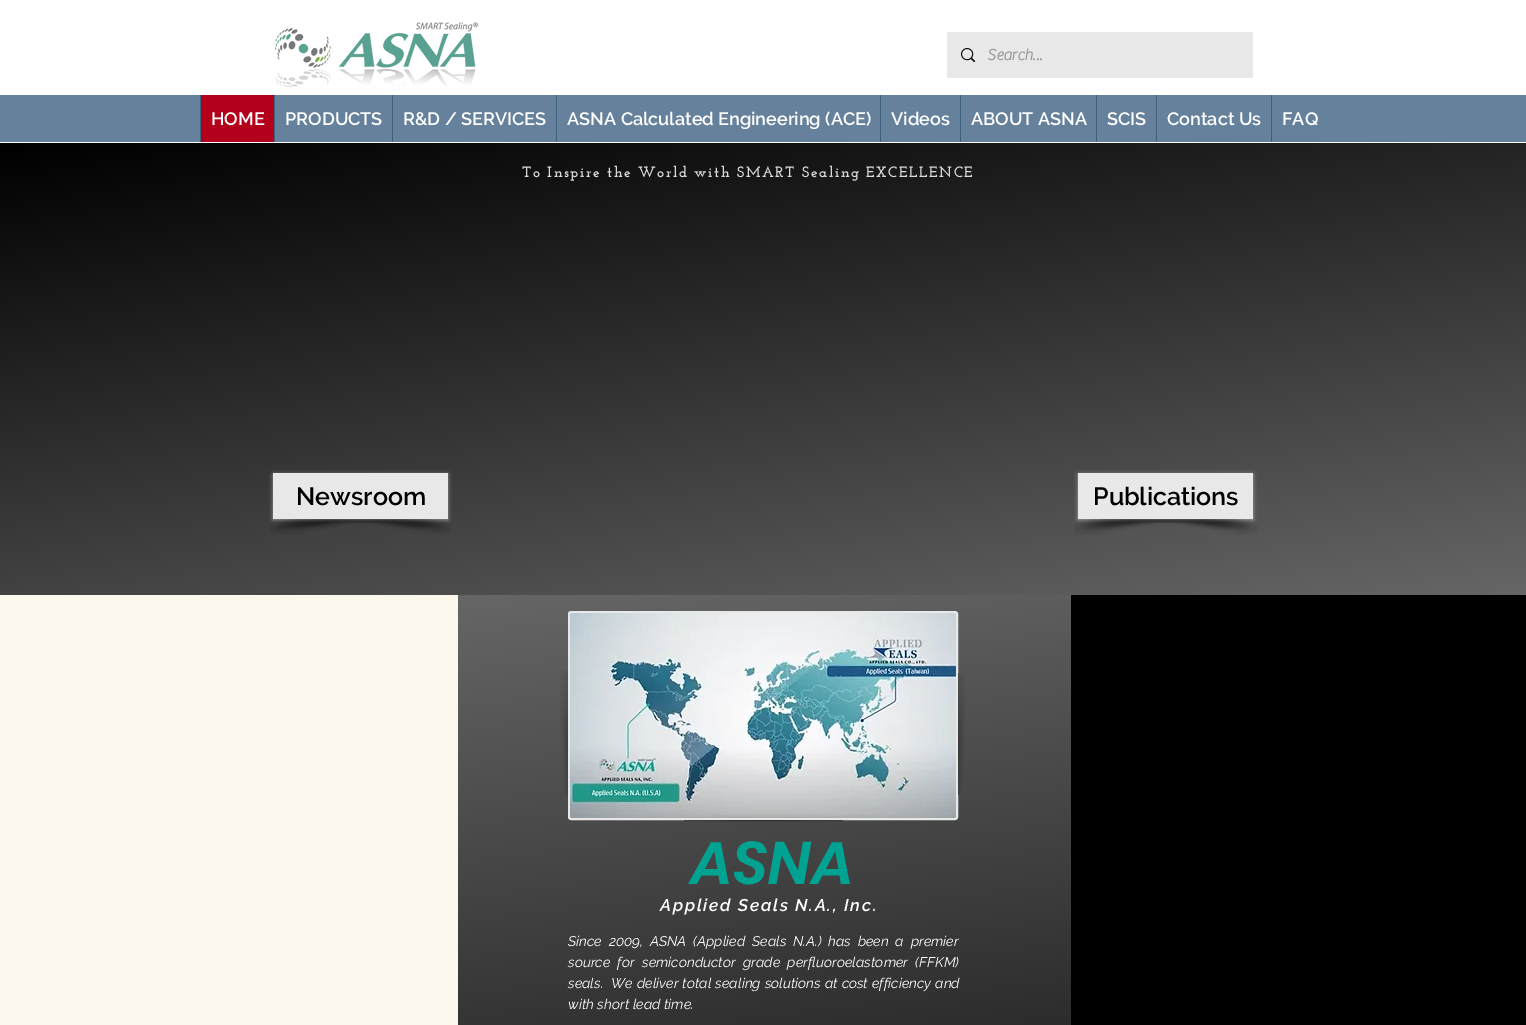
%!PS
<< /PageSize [1526 1025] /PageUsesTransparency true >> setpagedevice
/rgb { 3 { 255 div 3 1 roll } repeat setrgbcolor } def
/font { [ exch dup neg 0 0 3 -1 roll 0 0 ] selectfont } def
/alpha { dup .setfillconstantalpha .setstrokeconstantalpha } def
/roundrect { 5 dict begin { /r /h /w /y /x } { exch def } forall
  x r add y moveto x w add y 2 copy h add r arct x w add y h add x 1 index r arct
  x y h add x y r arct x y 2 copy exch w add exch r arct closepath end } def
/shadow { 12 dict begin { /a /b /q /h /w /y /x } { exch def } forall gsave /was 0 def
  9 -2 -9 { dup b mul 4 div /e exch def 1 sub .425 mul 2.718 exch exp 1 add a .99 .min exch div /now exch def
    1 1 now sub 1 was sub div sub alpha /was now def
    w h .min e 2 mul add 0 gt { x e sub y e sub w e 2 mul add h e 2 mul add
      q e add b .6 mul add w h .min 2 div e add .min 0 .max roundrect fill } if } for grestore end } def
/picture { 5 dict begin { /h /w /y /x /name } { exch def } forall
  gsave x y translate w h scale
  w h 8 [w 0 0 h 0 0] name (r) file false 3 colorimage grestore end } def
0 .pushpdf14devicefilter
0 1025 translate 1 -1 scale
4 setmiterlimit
255 255 255 rgb
0 0 1526 1025 rectfill
(img/1.rgb) 275 22 204 65 picture
232 232 232 rgb
947 32 306 46 rectfill
(img/2.rgb) 961 48 14 14 picture
[
  [0 95 1526 47 101 129 155]
  [201 95 73 47 179 0 27]
  [200 95 1 47 62 98 130]
  [274 95 1 47 62 98 130]
  [392 95 1 47 62 98 130]
  [556 95 1 47 62 98 130]
  [880 95 1 47 62 98 130]
  [960 95 1 47 62 98 130]
  [1096 95 1 47 62 98 130]
  [1156 95 1 47 62 98 130]
  [1271 95 1 47 62 98 130]
] { aload pop rgb rectfill } forall
gsave 0 143 moveto 1526 143 lineto 1526 595 lineto 0 595 lineto closepath clip newpath
<< /ShadingType 2 /ColorSpace /DeviceRGB /Coords [817 707 709 29] /Extend [true true] /Function << /FunctionType 2 /Domain [0 1] /C0 [0.4 0.4 0.4] /C1 [0 0 0] /N 1 >> >> shfill grestore
(img/3.rgb) 270 519 133 15 picture
(img/4.rgb) 345 519 106 15 picture
250 250 250 rgb
273 474 175 46 0 2 0.5 shadow
232 232 232 rgb
273 473 175 46 rectfill
(img/5.rgb) 1074 519 136 16 picture
(img/6.rgb) 1147 519 111 16 picture
250 250 250 rgb
1078 474 175 46 0 2 0.5 shadow
232 232 232 rgb
1078 473 175 46 rectfill
252 248 237 rgb
0 595 458 430 rectfill
gsave 458 595 moveto 1071 595 lineto 1071 1025 lineto 458 1025 lineto closepath clip newpath
<< /ShadingType 2 /ColorSpace /DeviceRGB /Coords [710 564 819 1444] /Extend [true true] /Function << /FunctionType 2 /Domain [0 1] /C0 [0.4 0.4 0.4] /C1 [0 0 0] /N 1 >> >> shfill grestore
(img/7.rgb) 560 671 8 125 picture
232 232 232 rgb
569 612 388 207 2 roundrect gsave fill grestore
2 setlinewidth
stroke
(img/8.rgb) 570 613 386 205 picture
(img/9.rgb) 684 820 159 2 picture
(img/10.rgb) 958 673 7 122 picture
0 0 0 rgb
1071 595 455 430 rectfill
/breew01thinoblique-Bold 16 font
153 153 153 rgb
987 60 moveto (Search...) show
/Raleway-SemiBold 18 font
255 255 255 rgb
[
  [(HOME) 211 125]
  [(PRODUCTS) 285 125]
  [(R&D / SERVICES) 403 125]
  [(ASNA Calculated Engineering \(ACE\)) 567 125]
  [(Videos) 891 125]
  [(ABOUT ASNA) 971 125]
  [(SCIS) 1107 125]
  [(Contact Us) 1167 125]
  [(FAQ) 1282 125]
] { aload pop moveto show } forall
/JosefinSlab-Bold 15 font
219 219 219 rgb
522 177 moveto 1.5 0 (To Inspire the World with SMART Sealing EXCELLENCE) ashow
/Raleway-SemiBold 25 font
0 0 0 rgb
296 505 moveto (Newsroom) show
1093 505 moveto (Publications) show
/Poppins-SemiBoldItalic 60 font
0 163 146 rgb
691 884 moveto (ASNA) show
/Raleway-SemiBoldItalic 17 font
255 255 255 rgb
660 911 moveto 1.7 0 (Applied Seals N.A., Inc.) ashow
/Raleway-Italic 14 font
568 946 moveto 3.25 0 32 (Since 2009, ASNA \(Applied Seals N.A.\) has been a premier) widthshow
568 967 moveto 3.75 0 32 (source for semiconductor grade perfluoroelastomer \(FFKM\)) widthshow
568 988 moveto 0.5 0 32 (seals.  We deliver total sealing solutions at cost efficiency and) widthshow
568 1009 moveto (with short lead time.) show
.poppdf14devicefilter showpage
